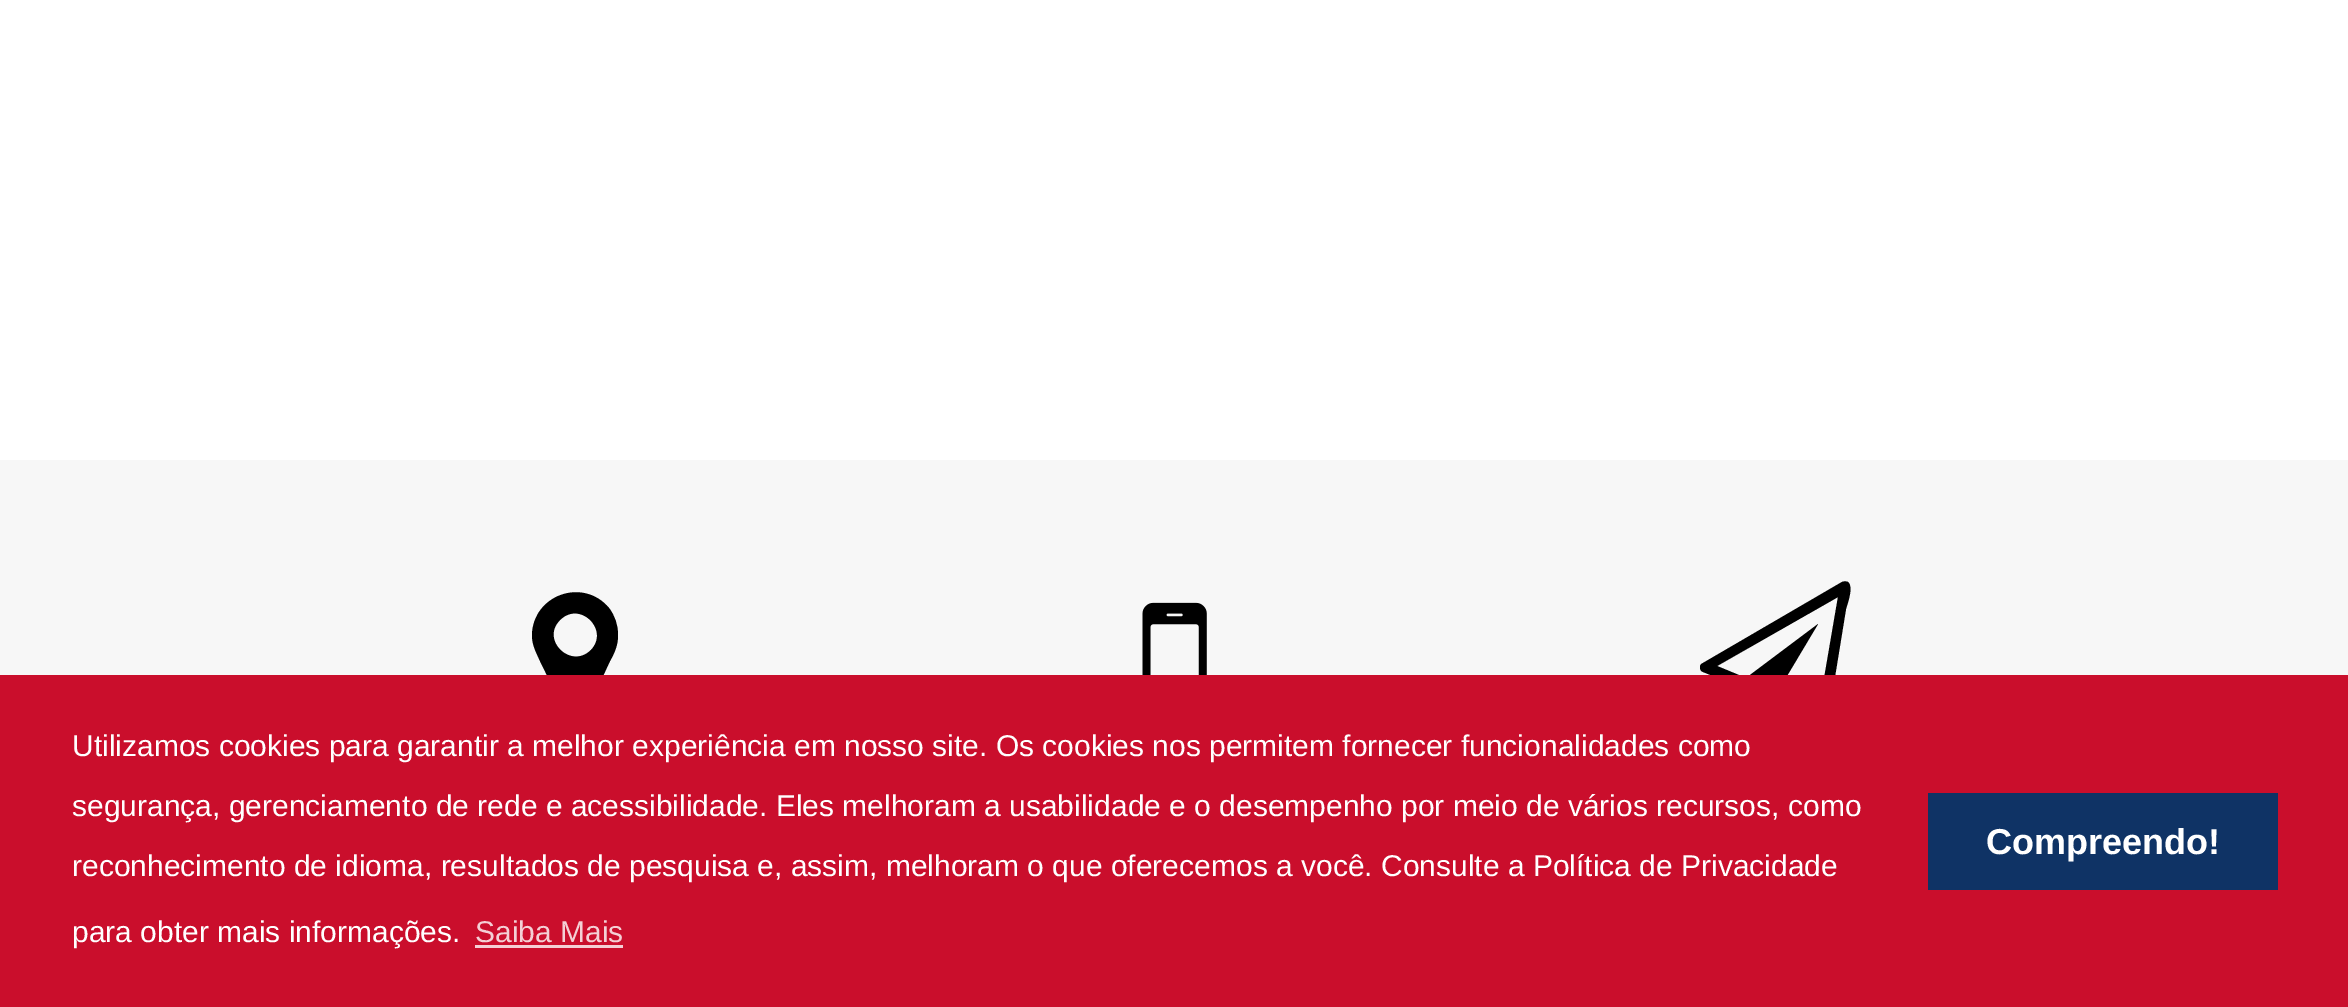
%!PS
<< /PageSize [2348 1007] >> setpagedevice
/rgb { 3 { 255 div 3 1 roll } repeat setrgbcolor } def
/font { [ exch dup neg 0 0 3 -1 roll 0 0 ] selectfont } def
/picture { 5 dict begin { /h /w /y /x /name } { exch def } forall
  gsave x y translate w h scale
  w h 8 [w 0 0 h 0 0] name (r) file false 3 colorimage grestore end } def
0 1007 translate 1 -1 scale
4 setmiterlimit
255 255 255 rgb
0 0 2348 1007 rectfill
247 247 247 rgb
0 460 2348 215 rectfill
0 0 0 rgb
591 650 moveto 610 630 580 600 560 620 curveto 540 640 571 670 591 650 curveto closepath 618 635 moveto 618 645 615 652 610 661 curveto 584 717 lineto 582 719 580 720 577 721 curveto 567 722 564 711 561 704 curveto 540 661 lineto 536 652 532 645 532 635 curveto 533 595 583 577 609 608 curveto 615 616 618 625 618 635 curveto closepath fill
(img/1.rgb) 1142 602 65 73 picture
1848 582 moveto 1854 587 1847 605 1846 609 curveto 1832 695 lineto 1830 705 1831 722 1823 721 curveto 1777 702 lineto 1751 730 lineto 1750 731 1749 732 1747 731 curveto 1742 730 1743 724 1743 720 curveto 1743 688 lineto 1703 672 lineto 1701 671 1700 670 1700 667 curveto 1700 665 1701 664 1703 663 curveto 1842 582 lineto 1844 581 1846 581 1848 582 curveto closepath 1819 708 moveto 1838 597 lineto 1717 666 lineto 1746 678 lineto 1818 624 lineto 1778 691 lineto closepath fill
[
  [0 675 2348 332 202 14 44]
  [475 945 148 3 244 207 213]
  [1928 793 350 97 15 51 101]
] { aload pop rgb rectfill } forall
/LiberationSans-Regular 30 font
255 255 255 rgb
[
  [(Utilizamos cookies para garantir a melhor experiência em nosso site. Os cookies nos permitem fornecer funcionalidades como) 72 756]
  [(segurança, gerenciamento de rede e acessibilidade. Eles melhoram a usabilidade e o desempenho por meio de vários recursos, como) 72 816]
  [(reconhecimento de idioma, resultados de pesquisa e, assim, melhoram o que oferecemos a você. Consulte a Política de Privacidade) 72 876]
  [(para obter mais informações.) 72 942]
] { aload pop moveto show } forall
244 207 213 rgb
475 942 moveto (Saiba Mais) show
/LiberationSans-Bold 36 font
255 255 255 rgb
1986 854 moveto (Compreendo!) show
showpage
